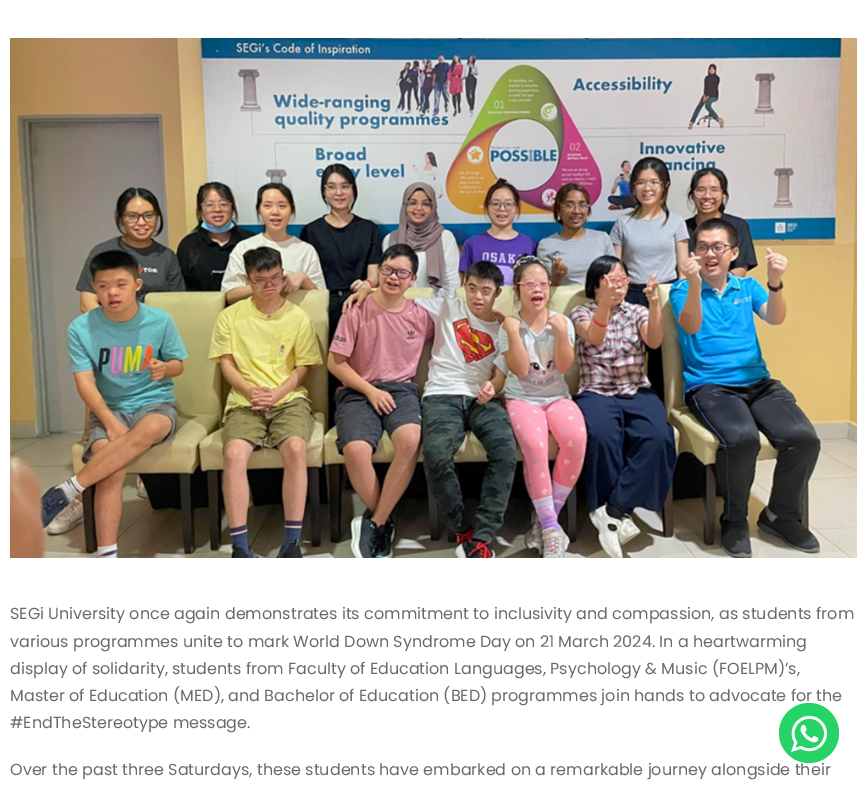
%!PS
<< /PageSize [867 791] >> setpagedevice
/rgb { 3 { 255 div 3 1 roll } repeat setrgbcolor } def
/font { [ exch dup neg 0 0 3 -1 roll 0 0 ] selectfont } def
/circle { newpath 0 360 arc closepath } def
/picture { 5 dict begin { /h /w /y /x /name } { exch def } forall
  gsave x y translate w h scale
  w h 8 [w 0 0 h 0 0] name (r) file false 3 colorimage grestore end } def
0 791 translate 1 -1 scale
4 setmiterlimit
255 255 255 rgb
0 0 867 791 rectfill
(img/1.rgb) 10 38 847 520 picture
/Poppins-Regular 16 font
107 107 107 rgb
[
  [(SEGi University once again demonstrates its commitment to inclusivity and compassion, as students from) 10 619]
  [(various programmes unite to mark World Down Syndrome Day on 21 March 2024. In a heartwarming) 10 647]
  [(display of solidarity, students from Faculty of Education Languages, Psychology & Music \(FOELPM\)’s,) 10 674]
  [(Master of Education \(MED\), and Bachelor of Education \(BED\) programmes join hands to advocate for the) 10 701]
  [(#EndTheStereotype message.) 10 728]
  [(Over the past three Saturdays, these students have embarked on a remarkable journey alongside their) 10 775]
] { aload pop moveto show } forall
37 211 102 rgb
809 733 30 circle fill
(img/2.rgb) 791 715 36 38 picture
showpage
